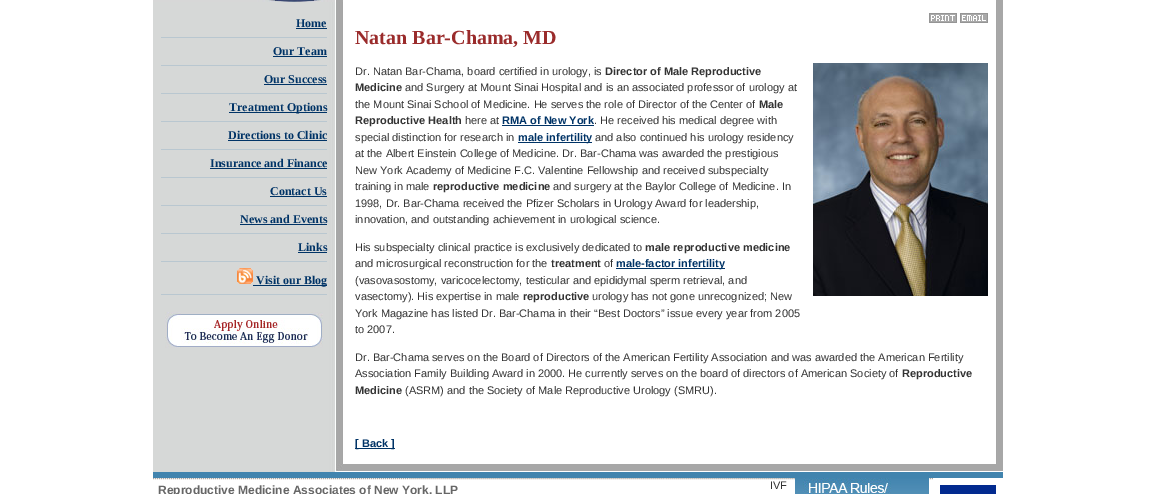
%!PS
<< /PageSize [1156 494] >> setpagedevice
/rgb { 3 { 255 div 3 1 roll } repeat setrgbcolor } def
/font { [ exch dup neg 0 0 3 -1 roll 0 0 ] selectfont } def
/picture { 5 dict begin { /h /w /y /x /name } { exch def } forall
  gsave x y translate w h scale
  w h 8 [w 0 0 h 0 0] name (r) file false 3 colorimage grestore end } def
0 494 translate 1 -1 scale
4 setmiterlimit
255 255 255 rgb
0 0 1156 494 rectfill
(img/1.rgb) 153 0 850 2 picture
(img/2.rgb) 153 2 850 470 picture
[
  [161 37 166 1 185 199 208]
  [296 28 31 1 0 51 102]
  [161 65 166 1 185 199 208]
  [273 56 54 1 0 51 102]
  [161 93 166 1 185 199 208]
  [264 84 63 1 0 51 102]
  [161 121 166 1 185 199 208]
  [229 112 98 1 0 51 102]
  [161 149 166 1 185 199 208]
  [228 140 99 1 0 51 102]
  [161 177 166 1 185 199 208]
  [210 168 117 1 0 51 102]
  [161 205 166 1 185 199 208]
  [270 196 57 1 0 51 102]
  [161 233 166 1 185 199 208]
  [240 224 87 1 0 51 102]
  [161 261 166 1 185 199 208]
  [298 252 29 1 0 51 102]
  [161 294 166 1 185 199 208]
] { aload pop rgb rectfill } forall
(img/3.rgb) 237 268 16 16 picture
0 51 102 rgb
253 285 74 1 rectfill
(img/4.rgb) 165 312 158 36 picture
(img/5.rgb) 336 464 667 8 picture
(img/6.rgb) 929 13 28 10 picture
(img/7.rgb) 960 13 28 10 picture
502 125 92 1 rectfill
518 142 74 1 rectfill
(img/8.rgb) 813 63 175 233 picture
[
  [616 268 109 1 0 51 102]
  [355 448 40 1 0 51 102]
  [153 472 850 6 65 132 174]
] { aload pop rgb rectfill } forall
173 168 162 rgb
[1 1] 0 setdash
153 478.5 moveto 1003 478.5 lineto stroke
(img/9.rgb) 795 478 134 16 picture
(img/10.rgb) 933 478 69 16 picture
/LiberationSerif-Bold 12 font
0 51 102 rgb
[
  [(Home) 296 27]
  [(Our Team) 273 55]
  [(Our Success) 264 83]
  [(Treatment Options) 229 111]
  [(Directions to Clinic) 228 139]
  [(Insurance and Finance) 210 167]
  [(Contact Us) 270 195]
  [(News and Events) 240 223]
  [(Links) 298 251]
  [(Visit our Blog) 256 284]
] { aload pop moveto show } forall
/LiberationSerif-Bold 20 font
154 43 43 rgb
355 44 moveto (Natan Bar-Chama, MD) show
/LiberationSans-Regular 11 font
51 51 51 rgb
355 75 moveto (Dr. Natan Bar-Chama, board certified in urology, is) show
/LiberationSans-Bold 11 font
605 75 moveto (Director of Male Reproductive) show
355 91 moveto (Medicine) show
/LiberationSans-Regular 11 font
405 91 moveto (and Surgery at Mount Sinai Hospital and is an associated professor of urology at) show
355 108 moveto (the Mount Sinai School of Medicine. He serves the role of Director of the Center of) show
/LiberationSans-Bold 11 font
759 108 moveto (Male) show
355 124 moveto (Reproductive Health) show
/LiberationSans-Regular 11 font
465 124 moveto (here at) show
/LiberationSans-Bold 11 font
0 51 102 rgb
502 124 moveto (RMA of New York) show
/LiberationSans-Regular 11 font
51 51 51 rgb
594 124 moveto (. He received his medical degree with) show
355 141 moveto (special distinction for research in) show
/LiberationSans-Bold 11 font
0 51 102 rgb
518 141 moveto (male infertility) show
/LiberationSans-Regular 11 font
51 51 51 rgb
[
  [(and also continued his urology residency) 595 141]
  [(at the Albert Einstein College of Medicine. Dr. Bar-Chama was awarded the prestigious) 355 157]
  [(New York Academy of Medicine F.C. Valentine Fellowship and received subspecialty) 355 174]
  [(training in male) 355 190]
] { aload pop moveto show } forall
/LiberationSans-Bold 11 font
433 190 moveto (reproductive medicine) show
/LiberationSans-Regular 11 font
[
  [(and surgery at the Baylor College of Medicine. In) 553 190]
  [(1998, Dr. Bar-Chama received the Pfizer Scholars in Urology Award for leadership,) 355 207]
  [(innovation, and outstanding achievement in urological science.) 355 223]
  [(His subspecialty clinical practice is exclusively dedicated to) 355 251]
] { aload pop moveto show } forall
/LiberationSans-Bold 11 font
645 251 moveto (male reproductive medicine) show
/LiberationSans-Regular 11 font
355 267 moveto (and microsurgical reconstruction for the) show
/LiberationSans-Bold 11 font
551 267 moveto (treatment) show
/LiberationSans-Regular 11 font
604 267 moveto (of) show
/LiberationSans-Bold 11 font
0 51 102 rgb
616 267 moveto (male-factor infertility) show
/LiberationSans-Regular 11 font
51 51 51 rgb
355 284 moveto (\(vasovasostomy, varicocelectomy, testicular and epididymal sperm retrieval, and) show
355 300 moveto (vasectomy\). His expertise in male) show
/LiberationSans-Bold 11 font
523 300 moveto (reproductive) show
/LiberationSans-Regular 11 font
[
  [(urology has not gone unrecognized; New) 592 300]
  [(York Magazine has listed Dr. Bar-Chama in their “Best Doctors” issue every year from 2005) 355 317]
  [(to 2007.) 355 333]
  [(Dr. Bar-Chama serves on the Board of Directors of the American Fertility Association and was awarded the American Fertility) 355 361]
  [(Association Family Building Award in 2000. He currently serves on the board of directors of American Society of) 355 377]
] { aload pop moveto show } forall
/LiberationSans-Bold 11 font
902 377 moveto (Reproductive) show
355 394 moveto (Medicine) show
/LiberationSans-Regular 11 font
405 394 moveto (\(ASRM\) and the Society of Male Reproductive Urology \(SMRU\).) show
/LiberationSans-Bold 11 font
0 51 102 rgb
355 447 moveto ([ Back ]) show
/LiberationSans-Bold 12 font
102 102 102 rgb
158 494 moveto (Reproductive Medicine Associates of New York, LLP) show
/LiberationSans-Regular 11 font
51 51 51 rgb
770 489 moveto (IVF) show
showpage
